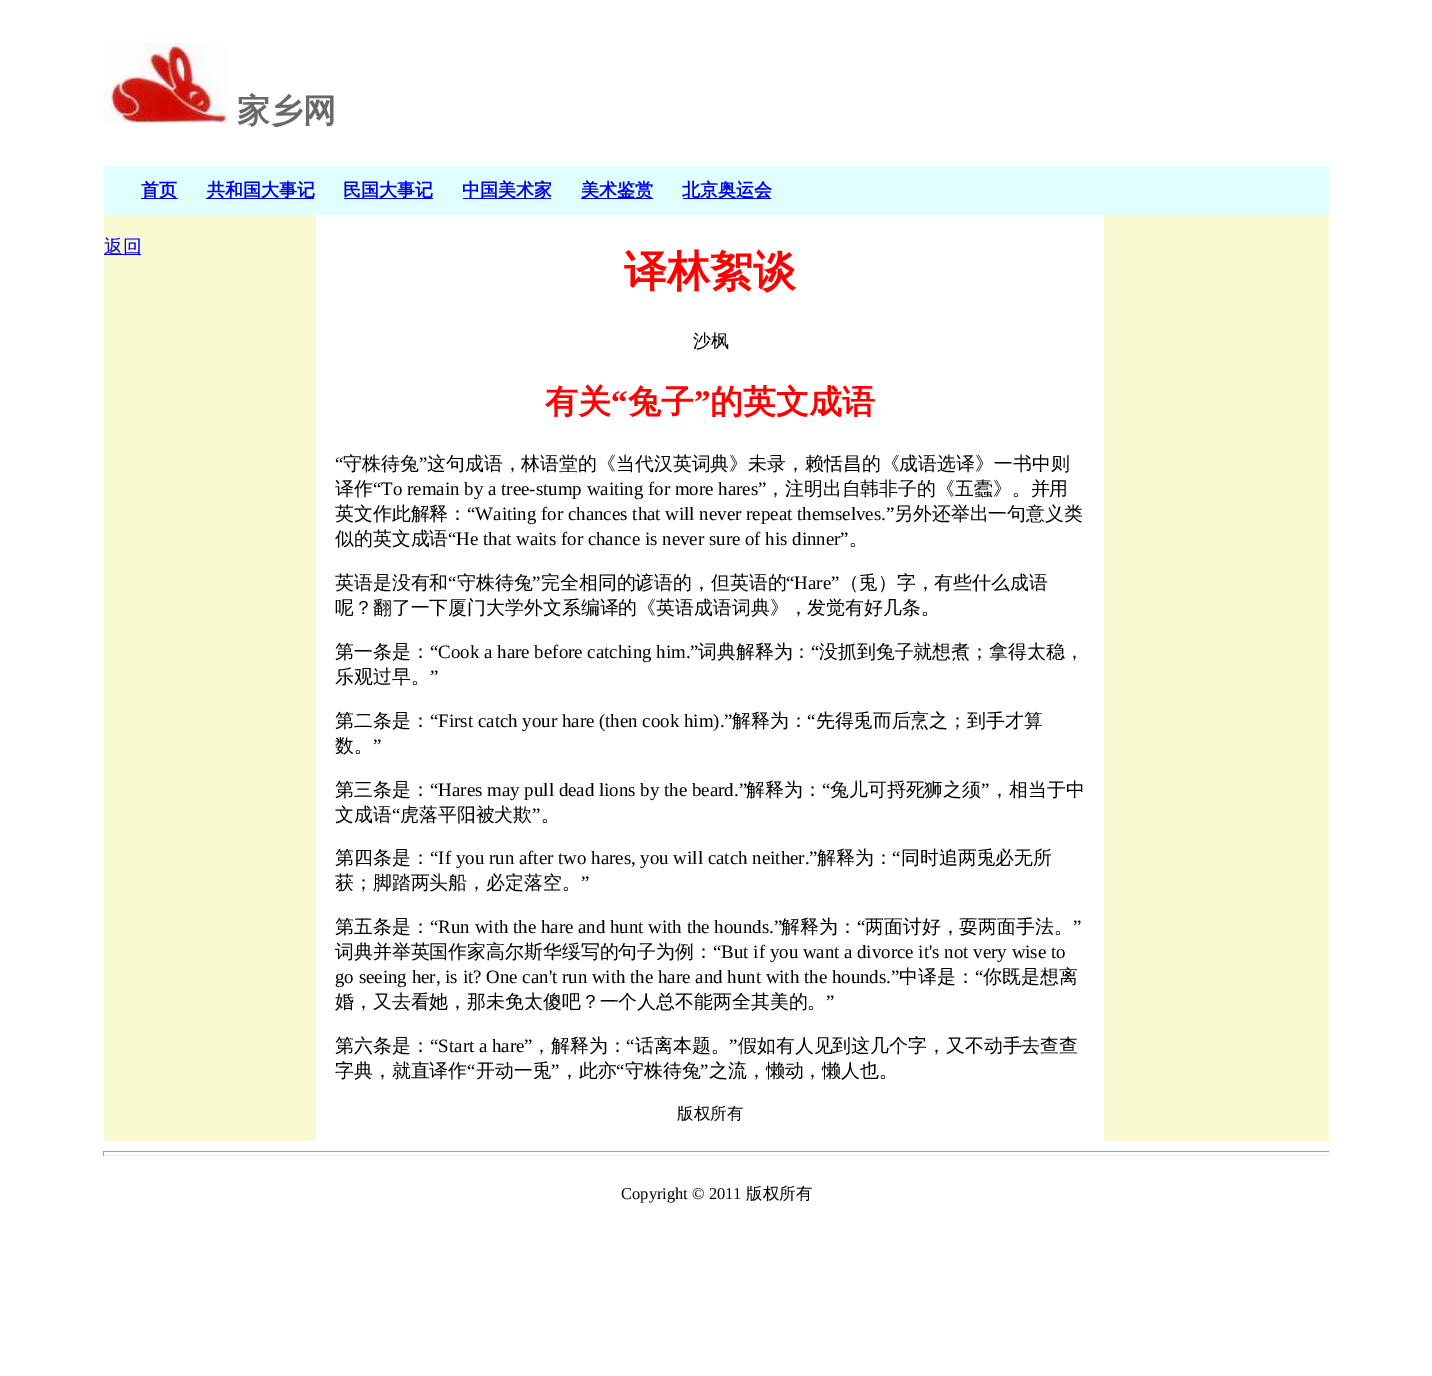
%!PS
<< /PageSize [1432 1376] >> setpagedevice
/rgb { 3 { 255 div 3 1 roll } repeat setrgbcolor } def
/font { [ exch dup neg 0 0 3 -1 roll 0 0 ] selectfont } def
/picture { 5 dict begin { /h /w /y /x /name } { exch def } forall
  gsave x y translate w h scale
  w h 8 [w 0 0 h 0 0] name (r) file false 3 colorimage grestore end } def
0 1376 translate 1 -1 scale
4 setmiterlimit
255 255 255 rgb
0 0 1432 1376 rectfill
(img/1.rgb) 104 42 125 81 picture
[
  [104 166 1225 49 224 255 255]
  [141 198 37 1 0 0 238]
  [206 198 108 1 0 0 238]
  [344 198 89 1 0 0 238]
  [463 198 88 1 0 0 238]
  [581 198 72 1 0 0 238]
  [683 198 88 1 0 0 238]
  [104 215 1225 926 250 250 210]
  [104 254 37 1 0 0 238]
  [316 215 788 926 255 255 255]
  [103 1151 1227 1 159 159 159]
  [1329 1151 1 5 238 238 238]
  [103 1155 1227 1 238 238 238]
  [103 1151 1 5 159 159 159]
] { aload pop rgb rectfill } forall
/WenQuanYiZenHei-Bold 33 font
105 105 105 rgb
237 122 moveto (家乡网) show
/WenQuanYiZenHei-Bold 18 font
0 0 238 rgb
[
  [(首页) 141 196]
  [(共和国大事记) 207 196]
  [(民国大事记) 343 196]
  [(中国美术家) 462 196]
  [(美术鉴赏) 581 196]
  [(北京奥运会) 682 196]
] { aload pop moveto show } forall
/WenQuanYiZenHei-Medium 18.9 font
104 253 moveto (返回) show
/WenQuanYiZenHei-Bold 43 font
255 0 0 rgb
624 286 moveto (译林絮谈) show
/WenQuanYiZenHei-Medium 18 font
0 0 0 rgb
693 347 moveto (沙枫) show
/WenQuanYiZenHei-Bold 33 font
255 0 0 rgb
545 413 moveto (有关) show
/LiberationSerif-Bold 33 font
611 413 moveto (“) show
/WenQuanYiZenHei-Bold 33 font
628 413 moveto (兔子) show
/LiberationSerif-Bold 33 font
694 413 moveto (”) show
/WenQuanYiZenHei-Bold 33 font
710 413 moveto (的英文成语) show
/LiberationSerif-Regular 18.9 font
0 0 0 rgb
335 470 moveto (“) show
/WenQuanYiZenHei-Medium 18.9 font
343 470 moveto (守株待兔) show
/LiberationSerif-Regular 18.9 font
419 470 moveto (”) show
/WenQuanYiZenHei-Medium 18.9 font
427 470 moveto (这句成语，林语堂的《当代汉英词典》未录，赖恬昌的《成语选译》一书中则) show
335 495 moveto (译作) show
/LiberationSerif-Regular 18.9 font
373 495 moveto (“To remain by a tree-stump waiting for more hares”) show
/WenQuanYiZenHei-Medium 18.9 font
766 495 moveto (，注明出自韩非子的《五蠹》。并用) show
335 520 moveto (英文作此解释：) show
/LiberationSerif-Regular 18.9 font
467 520 moveto (“Waiting for chances that will never repeat themselves.”) show
/WenQuanYiZenHei-Medium 18.9 font
894 520 moveto (另外还举出一句意义类) show
335 545 moveto (似的英文成语) show
/LiberationSerif-Regular 18.9 font
448 545 moveto (“He that waits for chance is never sure of his dinner”) show
/WenQuanYiZenHei-Medium 18.9 font
849 545 moveto (。) show
335 589 moveto (英语是没有和) show
/LiberationSerif-Regular 18.9 font
448 589 moveto (“) show
/WenQuanYiZenHei-Medium 18.9 font
457 589 moveto (守株待兔) show
/LiberationSerif-Regular 18.9 font
532 589 moveto (”) show
/WenQuanYiZenHei-Medium 18.9 font
541 589 moveto (完全相同的谚语的，但英语的) show
/LiberationSerif-Regular 18.9 font
786 589 moveto (“Hare”) show
/WenQuanYiZenHei-Medium 18.9 font
[
  [(（兎）字，有些什么成语) 840 589]
  [(呢？翻了一下厦门大学外文系编译的《英语成语词典》，发觉有好几条。) 335 614]
  [(第一条是：) 335 658]
] { aload pop moveto show } forall
/LiberationSerif-Regular 18.9 font
430 658 moveto (“Cook a hare before catching him.”) show
/WenQuanYiZenHei-Medium 18.9 font
698 658 moveto (词典解释为：) show
/LiberationSerif-Regular 18.9 font
811 658 moveto (“) show
/WenQuanYiZenHei-Medium 18.9 font
819 658 moveto (没抓到兔子就想煮；拿得太稳，) show
335 683 moveto (乐观过早。) show
/LiberationSerif-Regular 18.9 font
430 683 moveto (”) show
/WenQuanYiZenHei-Medium 18.9 font
335 727 moveto (第二条是：) show
/LiberationSerif-Regular 18.9 font
430 727 moveto (“First catch your hare \(then cook him\).”) show
/WenQuanYiZenHei-Medium 18.9 font
732 727 moveto (解释为：) show
/LiberationSerif-Regular 18.9 font
807 727 moveto (“) show
/WenQuanYiZenHei-Medium 18.9 font
816 727 moveto (先得兎而后烹之；到手才算) show
335 752 moveto (数。) show
/LiberationSerif-Regular 18.9 font
373 752 moveto (”) show
/WenQuanYiZenHei-Medium 18.9 font
335 796 moveto (第三条是：) show
/LiberationSerif-Regular 18.9 font
430 796 moveto (“Hares may pull dead lions by the beard.”) show
/WenQuanYiZenHei-Medium 18.9 font
746 796 moveto (解释为：) show
/LiberationSerif-Regular 18.9 font
822 796 moveto (“) show
/WenQuanYiZenHei-Medium 18.9 font
830 796 moveto (兔儿可捋死狮之须) show
/LiberationSerif-Regular 18.9 font
981 796 moveto (”) show
/WenQuanYiZenHei-Medium 18.9 font
990 796 moveto (，相当于中) show
335 821 moveto (文成语) show
/LiberationSerif-Regular 18.9 font
392 821 moveto (“) show
/WenQuanYiZenHei-Medium 18.9 font
400 821 moveto (虎落平阳被犬欺) show
/LiberationSerif-Regular 18.9 font
532 821 moveto (”) show
/WenQuanYiZenHei-Medium 18.9 font
541 821 moveto (。) show
335 864 moveto (第四条是：) show
/LiberationSerif-Regular 18.9 font
430 864 moveto (“If you run after two hares, you will catch neither.”) show
/WenQuanYiZenHei-Medium 18.9 font
817 864 moveto (解释为：) show
/LiberationSerif-Regular 18.9 font
892 864 moveto (“) show
/WenQuanYiZenHei-Medium 18.9 font
901 864 moveto (同时追两兎必无所) show
335 889 moveto (获；脚踏两头船，必定落空。) show
/LiberationSerif-Regular 18.9 font
581 889 moveto (”) show
/WenQuanYiZenHei-Medium 18.9 font
335 933 moveto (第五条是：) show
/LiberationSerif-Regular 18.9 font
430 933 moveto (“Run with the hare and hunt with the hounds.”) show
/WenQuanYiZenHei-Medium 18.9 font
781 933 moveto (解释为：) show
/LiberationSerif-Regular 18.9 font
857 933 moveto (“) show
/WenQuanYiZenHei-Medium 18.9 font
865 933 moveto (两面讨好，耍两面手法。) show
/LiberationSerif-Regular 18.9 font
1073 933 moveto (”) show
/WenQuanYiZenHei-Medium 18.9 font
335 958 moveto (词典并举英国作家高尔斯华绥写的句子为例：) show
/LiberationSerif-Regular 18.9 font
[
  [(“But if you want a) 713 958]
  [(divorce it's not very wise to) 857 958]
  [(go seeing her, is it? One can't run with the hare and hunt with the hounds.”) 335 983]
] { aload pop moveto show } forall
/WenQuanYiZenHei-Medium 18.9 font
899 983 moveto (中译是：) show
/LiberationSerif-Regular 18.9 font
975 983 moveto (“) show
/WenQuanYiZenHei-Medium 18.9 font
983 983 moveto (你既是想离) show
335 1008 moveto (婚，又去看她，那未免太傻吧？一个人总不能两全其美的。) show
/LiberationSerif-Regular 18.9 font
826 1008 moveto (”) show
/WenQuanYiZenHei-Medium 18.9 font
335 1052 moveto (第六条是：) show
/LiberationSerif-Regular 18.9 font
430 1052 moveto (“Start a hare”) show
/WenQuanYiZenHei-Medium 18.9 font
532 1052 moveto (，解释为：) show
/LiberationSerif-Regular 18.9 font
626 1052 moveto (“) show
/WenQuanYiZenHei-Medium 18.9 font
635 1052 moveto (话离本题。) show
/LiberationSerif-Regular 18.9 font
729 1052 moveto (”) show
/WenQuanYiZenHei-Medium 18.9 font
738 1052 moveto (假如有人见到这几个字，又不动手去查查) show
335 1077 moveto (字典，就直译作) show
/LiberationSerif-Regular 18.9 font
467 1077 moveto (“) show
/WenQuanYiZenHei-Medium 18.9 font
476 1077 moveto (开动一兎) show
/LiberationSerif-Regular 18.9 font
551 1077 moveto (”) show
/WenQuanYiZenHei-Medium 18.9 font
560 1077 moveto (，此亦) show
/LiberationSerif-Regular 18.9 font
616 1077 moveto (“) show
/WenQuanYiZenHei-Medium 18.9 font
625 1077 moveto (守株待兔) show
/LiberationSerif-Regular 18.9 font
700 1077 moveto (”) show
/WenQuanYiZenHei-Medium 18.9 font
709 1077 moveto (之流，懒动，懒人也。) show
/WenQuanYiZenHei-Medium 16.5 font
677 1119 moveto (版权所有) show
/LiberationSerif-Regular 16.5 font
621 1199 moveto (Copyright © 2011) show
/WenQuanYiZenHei-Medium 16.5 font
746 1199 moveto (版权所有) show
showpage
